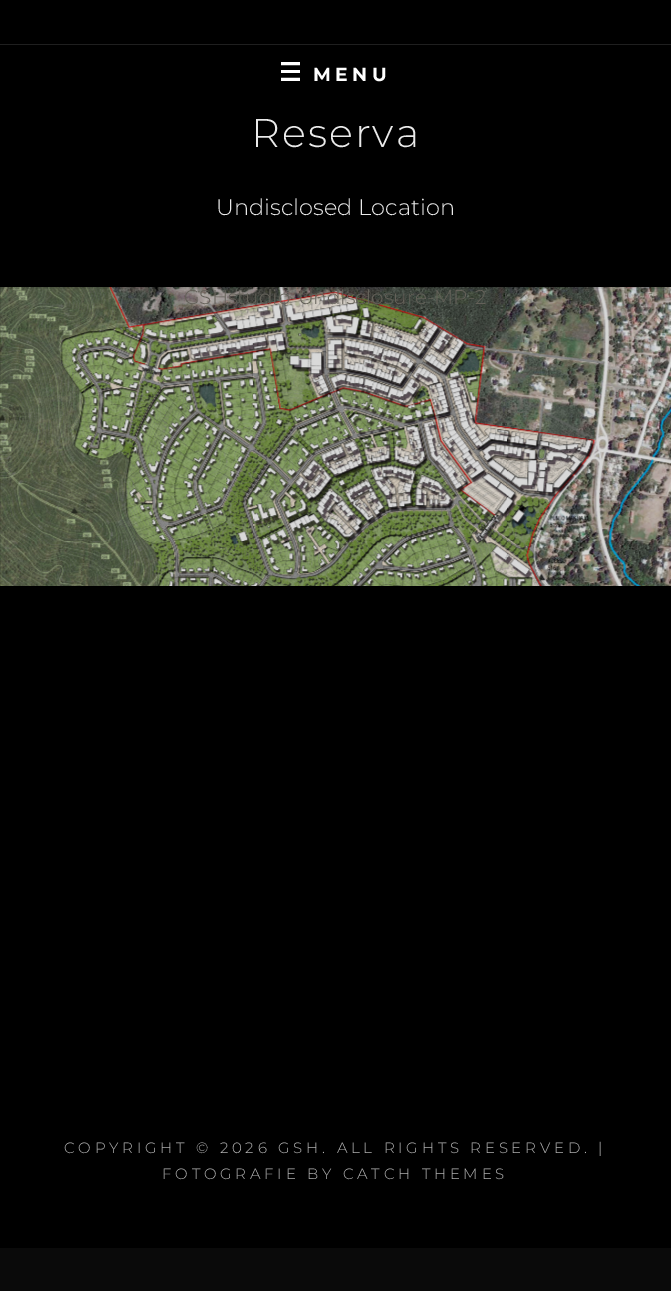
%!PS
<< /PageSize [671 1291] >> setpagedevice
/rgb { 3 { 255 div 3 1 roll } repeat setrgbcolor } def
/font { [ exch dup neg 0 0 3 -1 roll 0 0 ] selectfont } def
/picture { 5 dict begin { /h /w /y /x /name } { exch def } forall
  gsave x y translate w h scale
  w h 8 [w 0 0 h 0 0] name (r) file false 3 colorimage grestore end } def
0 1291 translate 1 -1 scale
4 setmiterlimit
10 10 10 rgb
0 0 671 1291 rectfill
0 0 0 rgb
0 0 671 1248 rectfill
31 31 31 rgb
0 44 671 1 rectfill
(img/1.rgb) 0 287 671 299 picture
/DejaVuSans-Bold 25 font
255 255 255 rgb
279 81 moveto 4.5 0 (☰) ashow
/Montserrat-Bold 18.75 font
313 81 moveto 4.5 0 (MENU) ashow
/Montserrat-Light 40 font
234 234 234 rgb
251 147 moveto 2 0 (Reserva) ashow
/Montserrat-Light 22.5 font
216 215 moveto (Undisclosed Location) show
/Montserrat-Light 20 font
100 97 89 rgb
184 304 moveto (GSHstudio-Undisclosure-MP-2) show
/Montserrat-Light 15 font
179 179 179 rgb
64 1153 moveto 3.75 0 (COPYRIGHT © 2026 GSH. ALL RIGHTS RESERVED. |) ashow
162 1179 moveto 3.75 0 (FOTOGRAFIE BY CATCH THEMES) ashow
showpage
